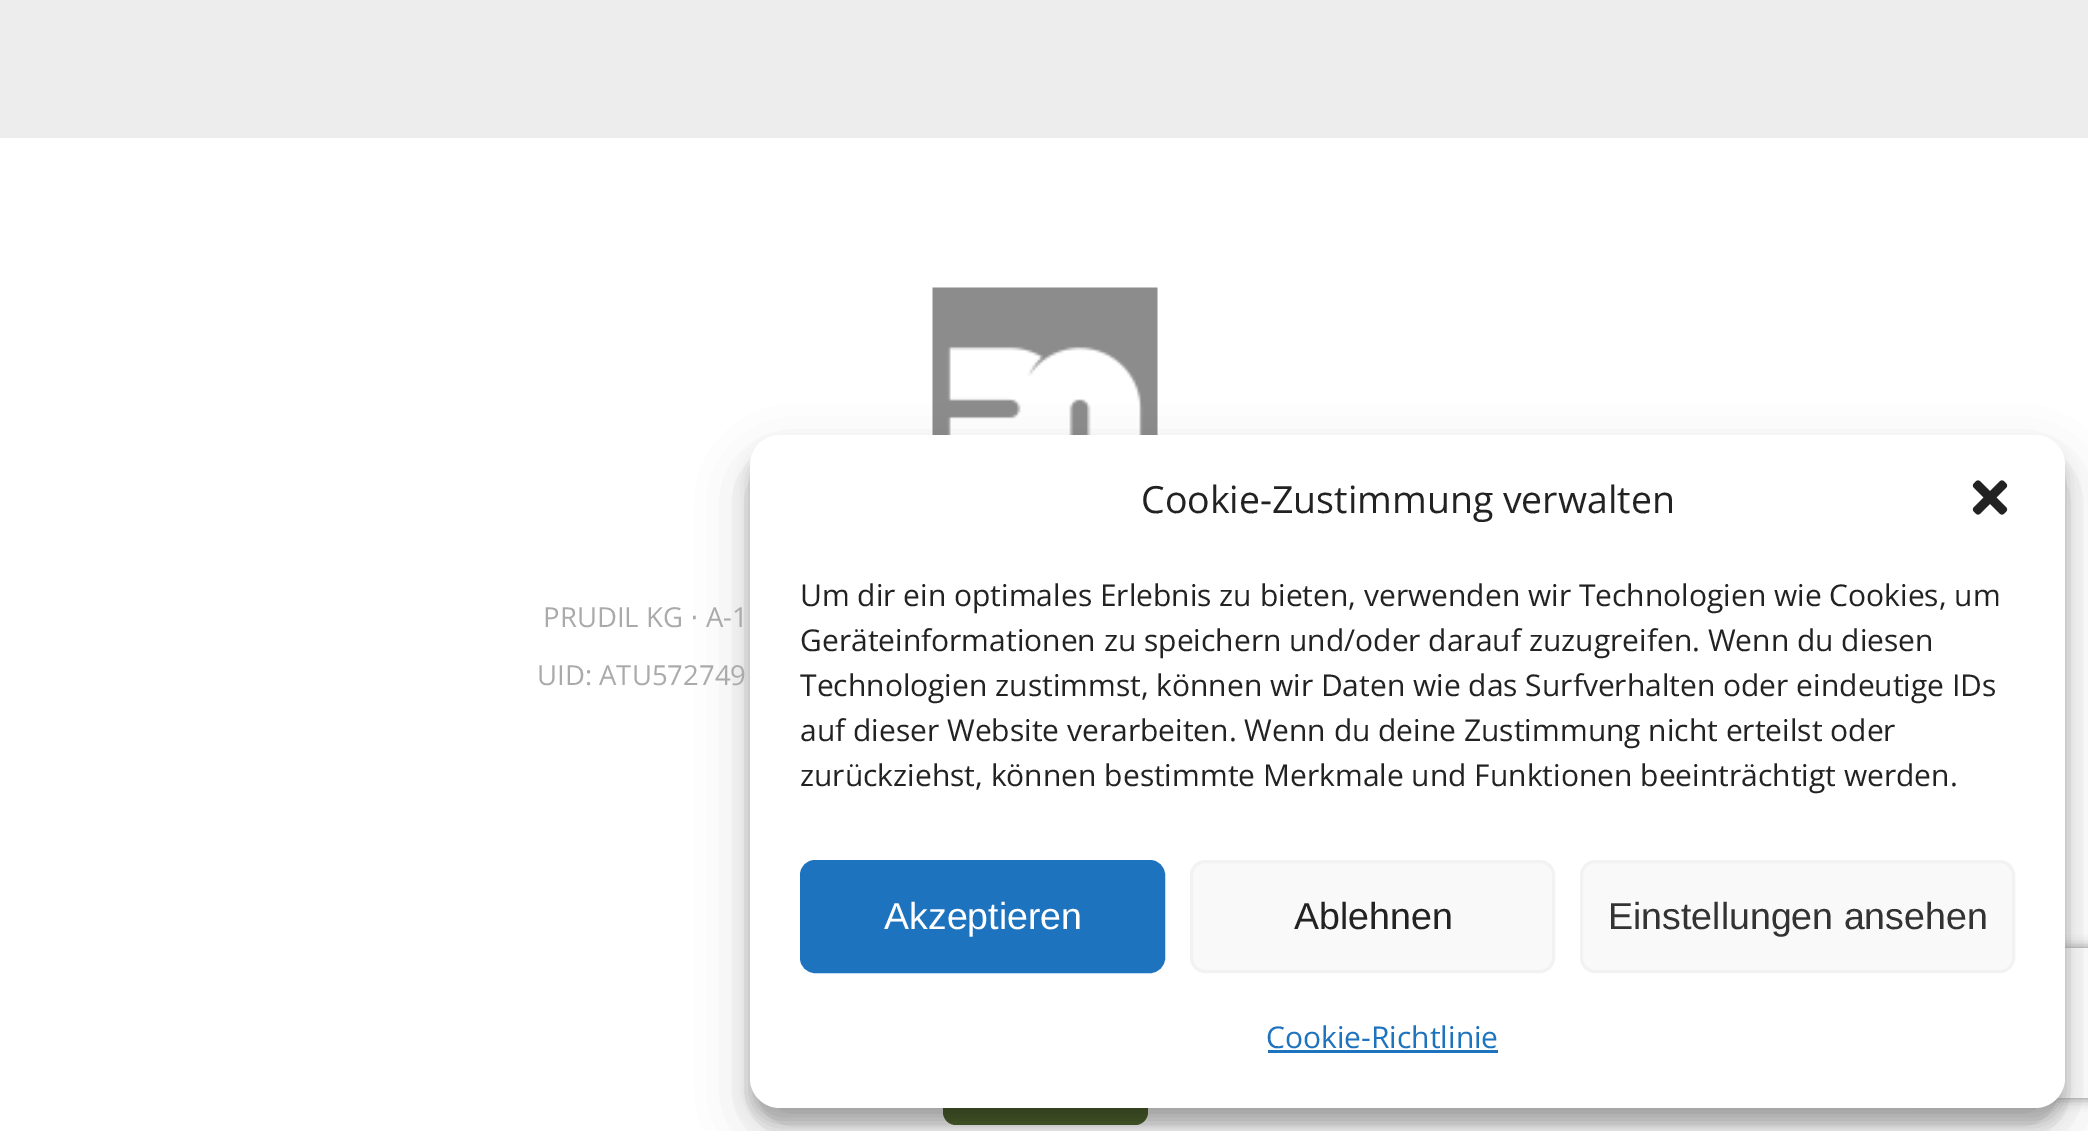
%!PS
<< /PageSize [2088 1131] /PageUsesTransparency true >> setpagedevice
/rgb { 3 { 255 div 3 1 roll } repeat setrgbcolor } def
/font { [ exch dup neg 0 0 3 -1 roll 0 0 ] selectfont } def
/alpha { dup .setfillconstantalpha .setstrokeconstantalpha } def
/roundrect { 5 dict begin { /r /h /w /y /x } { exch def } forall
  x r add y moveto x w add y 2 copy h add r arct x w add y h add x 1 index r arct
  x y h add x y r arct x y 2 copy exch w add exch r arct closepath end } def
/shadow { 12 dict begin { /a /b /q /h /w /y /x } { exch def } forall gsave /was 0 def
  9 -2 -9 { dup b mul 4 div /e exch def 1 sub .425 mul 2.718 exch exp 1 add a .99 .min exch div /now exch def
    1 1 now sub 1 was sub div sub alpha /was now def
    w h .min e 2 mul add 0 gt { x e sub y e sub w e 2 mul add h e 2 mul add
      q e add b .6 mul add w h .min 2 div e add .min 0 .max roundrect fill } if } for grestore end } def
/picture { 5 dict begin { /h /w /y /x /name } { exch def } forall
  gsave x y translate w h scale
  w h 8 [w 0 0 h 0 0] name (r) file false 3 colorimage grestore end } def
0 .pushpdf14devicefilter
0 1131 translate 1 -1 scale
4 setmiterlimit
255 255 255 rgb
0 0 2088 1131 rectfill
237 237 237 rgb
0 0 2088 138 rectfill
(img/1.rgb) 932 287 226 148 picture
82 101 46 rgb
943 1015 205 110 13 roundrect fill
0 0 0 rgb
750 450 1315 673 30 7.5 0.23 shadow
750 460 1315 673 30 25 0.19 shadow
gsave
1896 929 moveto 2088 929 lineto 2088 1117 lineto 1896 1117 lineto closepath 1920 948 moveto 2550 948 lineto 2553 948 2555 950 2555 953 curveto 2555 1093 lineto 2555 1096 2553 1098 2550 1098 curveto 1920 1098 lineto 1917 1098 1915 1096 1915 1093 curveto 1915 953 lineto 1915 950 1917 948 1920 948 curveto closepath eoclip newpath
128 128 128 rgb
1915 948 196 150 5 6 1 shadow
grestore
255 255 255 rgb
750 435 1315 673 30 roundrect fill
(img/2.rgb) 1972 480 36 35 picture
30 115 190 rgb
801.5 861.5 362 110 13.5 roundrect gsave fill grestore
3 setlinewidth
stroke
249 249 249 rgb
1191.5 861.5 362 110 13.5 roundrect gsave fill grestore
242 242 242 rgb
stroke
249 249 249 rgb
1581.5 861.5 432 110 13.5 roundrect gsave fill grestore
242 242 242 rgb
stroke
30 115 190 rgb
1268 1050 230 3 rectfill
/OpenSans-Regular 27.5 font
170 170 170 rgb
543 627 moveto (PRUDIL KG) show
/DejaVuSans-Regular 27.5 font
690 627 moveto (⋅) show
/OpenSans-Regular 27.5 font
706 627 moveto (A-1) show
537 685 moveto (UID: ATU572749) show
/OpenSans-Regular 37.5 font
34 34 34 rgb
1141 513 moveto (Cookie-Zustimmung verwalten) show
/OpenSans-Regular 30 font
[
  [(Um dir ein optimales Erlebnis zu bieten, verwenden wir Technologien wie Cookies, um) 800 606]
  [(Geräteinformationen zu speichern und/oder darauf zuzugreifen. Wenn du diesen) 800 651]
  [(Technologien zustimmst, können wir Daten wie das Surfverhalten oder eindeutige IDs) 800 696]
  [(auf dieser Website verarbeiten. Wenn du deine Zustimmung nicht erteilst oder) 800 741]
  [(zurückziehst, können bestimmte Merkmale und Funktionen beeinträchtigt werden.) 800 786]
] { aload pop moveto show } forall
/LiberationSans-Regular 37.5 font
255 255 255 rgb
884 929 moveto (Akzeptieren) show
34 34 34 rgb
1294 929 moveto (Ablehnen) show
51 51 51 rgb
1608 929 moveto (Einstellungen ansehen) show
/OpenSans-Regular 30 font
30 115 190 rgb
1266 1048 moveto (Cookie-Richtlinie) show
.poppdf14devicefilter showpage
